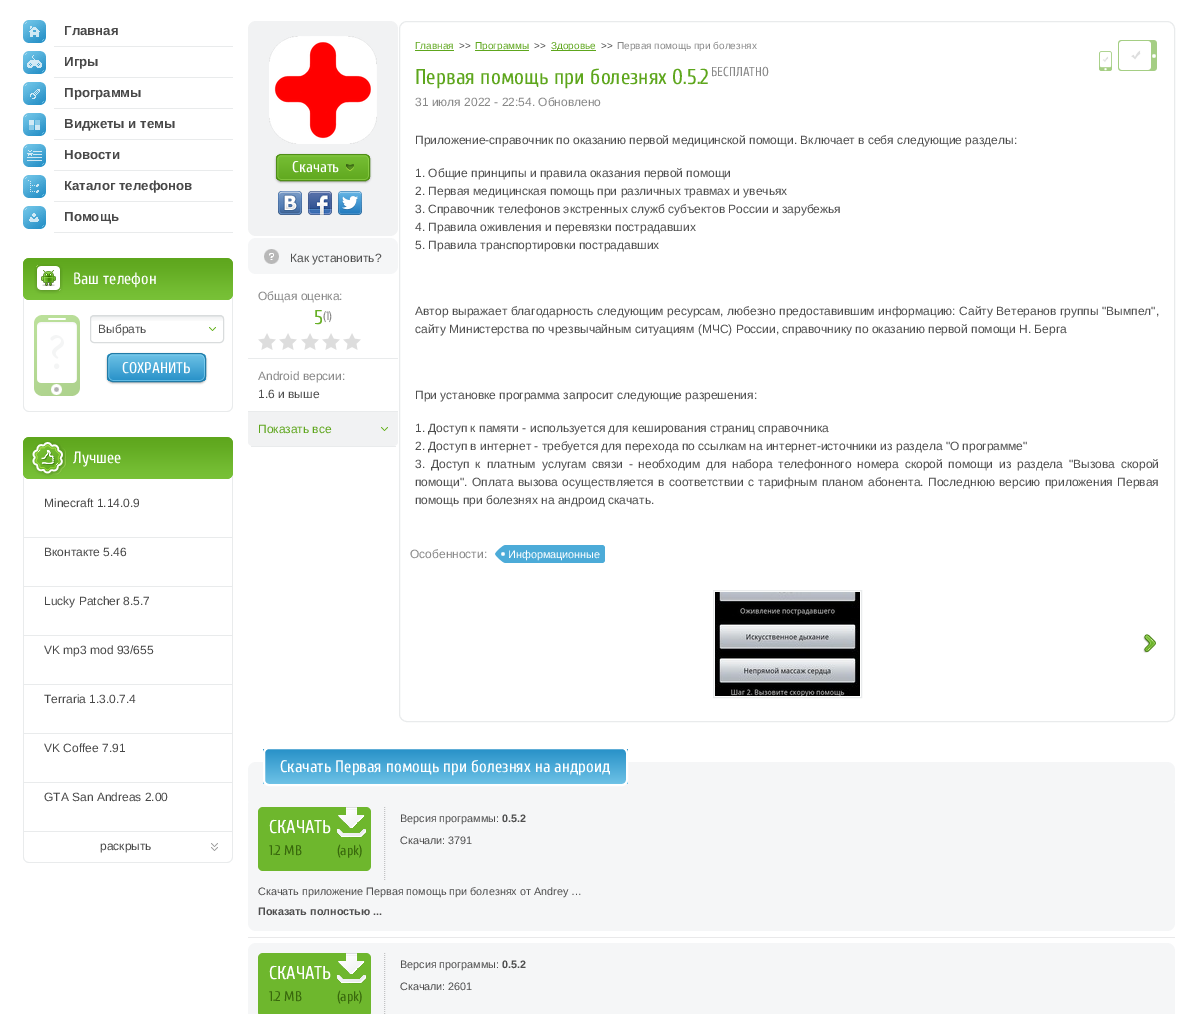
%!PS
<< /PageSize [1198 1014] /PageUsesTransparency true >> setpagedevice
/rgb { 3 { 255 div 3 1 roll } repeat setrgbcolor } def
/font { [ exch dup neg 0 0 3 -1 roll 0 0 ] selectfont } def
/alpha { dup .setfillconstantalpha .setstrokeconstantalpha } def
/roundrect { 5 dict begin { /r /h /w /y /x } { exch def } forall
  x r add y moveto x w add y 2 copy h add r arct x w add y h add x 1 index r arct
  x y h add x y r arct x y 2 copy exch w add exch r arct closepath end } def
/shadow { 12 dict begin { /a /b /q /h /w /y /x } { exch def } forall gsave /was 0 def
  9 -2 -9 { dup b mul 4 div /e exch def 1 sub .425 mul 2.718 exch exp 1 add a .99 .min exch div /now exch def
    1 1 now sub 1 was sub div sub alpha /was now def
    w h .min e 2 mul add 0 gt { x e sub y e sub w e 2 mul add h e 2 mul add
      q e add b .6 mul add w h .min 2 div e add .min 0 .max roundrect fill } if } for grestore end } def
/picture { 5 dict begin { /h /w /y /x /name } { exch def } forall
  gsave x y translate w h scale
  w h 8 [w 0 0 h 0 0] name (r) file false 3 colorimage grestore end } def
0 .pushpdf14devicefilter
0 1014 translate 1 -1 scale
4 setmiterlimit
255 255 255 rgb
0 0 1198 1014 rectfill
233 235 236 rgb
54 46 179 1 rectfill
(img/1.rgb) 23 20 31 27 picture
54 77 179 1 rectfill
(img/2.rgb) 23 51 31 27 picture
54 108 179 1 rectfill
(img/3.rgb) 23 82 31 27 picture
54 139 179 1 rectfill
(img/4.rgb) 23 113 31 27 picture
54 170 179 1 rectfill
(img/5.rgb) 23 144 31 27 picture
54 201 179 1 rectfill
(img/6.rgb) 23 175 31 27 picture
54 232 179 1 rectfill
(img/7.rgb) 23 206 31 27 picture
29 258 moveto 227 258 lineto 230 258 233 261 233 264 curveto 233 406 lineto 233 409 230 412 227 412 curveto 29 412 lineto 26 412 23 409 23 406 curveto 23 264 lineto 23 261 26 258 29 258 curveto closepath 29 258 moveto 227 258 lineto 230 258 232 261 232 264 curveto 232 406 lineto 232 409 230 411 227 411 curveto 29 411 lineto 26 411 24 409 24 406 curveto 24 264 lineto 24 261 26 258 29 258 curveto closepath eofill
(img/8.rgb) 23 258 210 42 picture
(img/9.rgb) 34 264 29 30 picture
(img/10.rgb) 34 315 46 81 picture
(img/11.rgb) 90 316 134 5 picture
217 220 221 rgb
90.5 315.5 133 27 3.5 roundrect stroke
(img/12.rgb) 209 327 7 4 picture
0 0 0 rgb
107 354 99 29 6 1 0.35 shadow
gsave
107 353 99 29 6 roundrect clip newpath
gsave 107 354 moveto 206 354 lineto 206 381 lineto 107 381 lineto closepath clip newpath
<< /ShadingType 2 /ColorSpace /DeviceRGB /Coords [157 381 157 354] /Extend [true true] /Function << /FunctionType 2 /Domain [0 1] /C0 [0.157 0.569 0.784] /C1 [0.427 0.761 0.902] /N 1 >> >> shfill grestore
grestore
0.5 alpha
155 228 255 rgb
108.5 354.5 96 26 4.5 roundrect stroke
1 alpha
33 123 167 rgb
107.5 353.5 98 28 5.5 roundrect stroke
233 235 236 rgb
29 437 moveto 227 437 lineto 230 437 233 440 233 443 curveto 233 857 lineto 233 860 230 863 227 863 curveto 29 863 lineto 26 863 23 860 23 857 curveto 23 443 lineto 23 440 26 437 29 437 curveto closepath 29 437 moveto 227 437 lineto 230 437 232 440 232 443 curveto 232 857 lineto 232 860 230 862 227 862 curveto 29 862 lineto 26 862 24 860 24 857 curveto 24 443 lineto 24 440 26 437 29 437 curveto closepath eofill
(img/8.rgb) 23 437 210 42 picture
(img/13.rgb) 31 441 36 36 picture
[
  [24 537 208 1 233 235 236]
  [24 586 208 1 233 235 236]
  [24 635 208 1 233 235 236]
  [24 684 208 1 233 235 236]
  [24 733 208 1 233 235 236]
  [24 782 208 1 233 235 236]
] { aload pop rgb rectfill } forall
(img/14.rgb) 211 843 7 8 picture
23 831 210 1 rectfill
241 242 243 rgb
248 21 150 215 8 roundrect fill
(img/15.rgb) 269 36 108 108 picture
0 0 0 rgb
276 155 94 27 5 1 0.35 shadow
gsave
276 154 94 27 5 roundrect clip newpath
gsave 276 155 moveto 370 155 lineto 370 180 lineto 276 180 lineto closepath clip newpath
<< /ShadingType 2 /ColorSpace /DeviceRGB /Coords [323 180 323 155] /Extend [true true] /Function << /FunctionType 2 /Domain [0 1] /C0 [0.376 0.659 0.122] /C1 [0.467 0.749 0.208] /N 1 >> >> shfill grestore
grestore
0.4 alpha
175 237 103 rgb
277.5 155.5 91 24 3.5 roundrect stroke
1 alpha
79 142 23 rgb
276.5 154.5 93 26 4.5 roundrect stroke
(img/16.rgb) 346 164 8 7 picture
(img/17.rgb) 278 191 24 24 picture
(img/18.rgb) 308 191 24 24 picture
(img/19.rgb) 338 191 24 24 picture
245 246 247 rgb
248 238 150 36 8 roundrect fill
(img/20.rgb) 264 249 15 15 picture
233 235 236 rgb
248 358 150 1 rectfill
(img/21.rgb) 258 333 18 17 picture
(img/21.rgb) 279 333 18 17 picture
(img/21.rgb) 301 333 18 17 picture
(img/21.rgb) 322 333 18 17 picture
(img/21.rgb) 343 333 18 17 picture
248 411 150 1 rectfill
241 242 243 rgb
248 412 moveto 398 412 lineto 398 442 lineto 398 444 396 446 393 446 curveto 253 446 lineto 250 446 248 444 248 442 curveto closepath fill
233 235 236 rgb
251 446 145 1 rectfill
(img/22.rgb) 381 427 7 4 picture
399.5 21.5 775 700 7.5 roundrect stroke
[
  [415 50 39 1 94 166 29]
  [475 50 54 1 94 166 29]
  [551 50 45 1 94 166 29]
] { aload pop rgb rectfill } forall
(img/23.rgb) 1099 51 13 20 picture
(img/24.rgb) 1118 40 39 31 picture
76 171 216 rgb
495 545 moveto 602 545 lineto 603.5 545 605 546.5 605 548 curveto 605 560 lineto 605 561.5 603.5 563 602 563 curveto 495 563 lineto closepath fill
(img/25.rgb) 495 545 10 18 picture
233 235 236 rgb
713.5 590.5 148 107 rectstroke
(img/26.rgb) 715 592 145 104 picture
(img/27.rgb) 1143 634 13 19 picture
245 246 247 rgb
248 762 927 45 8 roundrect fill
gsave
263 747 365 39 6 roundrect clip newpath
gsave 263 749 moveto 628 749 lineto 628 784 lineto 263 784 lineto closepath clip newpath
<< /ShadingType 2 /ColorSpace /DeviceRGB /Coords [446 749 446 784] /Extend [true true] /Function << /FunctionType 2 /Domain [0 1] /C0 [0.157 0.569 0.784] /C1 [0.427 0.761 0.902] /N 1 >> >> shfill grestore
grestore
255 255 255 rgb
2 setlinewidth
264 748 363 37 5 roundrect stroke
245 246 247 rgb
248 797 927 134 8 roundrect fill
110 183 45 rgb
258 807 113 64 5 roundrect fill
(img/28.rgb) 336 807 30 31 picture
194 195 196 rgb
1 setlinewidth
[1 1] 0 setdash
384.5 807 moveto 384.5 881 lineto stroke
233 233 234 rgb
248 937 927 1 rectfill
245 246 247 rgb
248 943 927 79 8 roundrect fill
110 183 45 rgb
258 953 113 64 5 roundrect fill
(img/28.rgb) 336 953 30 31 picture
194 195 196 rgb
384.5 953 moveto 384.5 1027 lineto stroke
/LiberationSans-Bold 13.25 font
72 72 72 rgb
[
  [(Главная) 64 35]
  [(Игры) 64 66]
  [(Программы) 64 97]
  [(Виджеты и темы) 64 128]
  [(Новости) 64 159]
  [(Каталог телефонов) 64 190]
  [(Помощь) 64 221]
] { aload pop moveto show } forall
/Cuprum-Regular 16.25 font
255 255 255 rgb
73 284 moveto (Ваш телефон) show
/LiberationSans-Regular 12 font
78 78 78 rgb
98 333 moveto (Выбрать) show
/Cuprum-Regular 15.5 font
255 255 255 rgb
122 373 moveto (СОХРАНИТЬ) show
/Cuprum-Regular 16.25 font
73 463 moveto (Лучшее) show
/LiberationSans-Regular 12 font
72 72 72 rgb
[
  [(Minecraft 1.14.0.9) 44 507]
  [(Вконтакте 5.46) 44 556]
  [(Lucky Patcher 8.5.7) 44 605]
  [(VK mp3 mod 93/655) 44 654]
  [(Terraria 1.3.0.7.4) 44 703]
  [(VK Coffee 7.91) 44 752]
  [(GTA San Andreas 2.00) 44 801]
  [(раскрыть) 100 850]
] { aload pop moveto show } forall
/Cuprum-Regular 15.5 font
255 255 255 rgb
292 172 moveto (Скачать) show
/LiberationSans-Regular 12 font
78 78 78 rgb
290 262 moveto (Как установить?) show
136 136 136 rgb
258 300 moveto (Общая оценка:) show
/Cuprum-Regular 20 font
104 176 39 rgb
314 324 moveto (5) show
/Cuprum-Regular 12 font
136 136 136 rgb
323 320 moveto (\(1\)) show
/LiberationSans-Regular 12 font
258 380 moveto (Android версии:) show
78 78 78 rgb
258 398 moveto (1.6 и выше) show
94 166 29 rgb
258 433 moveto (Показать все) show
/LiberationSans-Regular 10 font
415 49 moveto (Главная) show
78 78 78 rgb
459 49 moveto (>>) show
94 166 29 rgb
475 49 moveto (Программы) show
78 78 78 rgb
534 49 moveto (>>) show
94 166 29 rgb
551 49 moveto (Здоровье) show
78 78 78 rgb
601 49 moveto (>>) show
136 136 136 rgb
617 49 moveto (Первая помощь при болезнях) show
/Cuprum-Regular 21.6 font
94 166 29 rgb
415 84 moveto (Первая помощь при болезнях 0.5.2) show
/Cuprum-Regular 13 font
136 136 136 rgb
711 76 moveto (БЕСПЛАТНО) show
/LiberationSans-Regular 12 font
415 106 moveto (31 июля 2022 - 22:54. Обновлено) show
78 78 78 rgb
[
  [(Приложение-справочник по оказанию первой медицинской помощи. Включает в себя следующие разделы:) 415 144]
  [(1. Общие принципы и правила оказания первой помощи) 415 177]
  [(2. Первая медицинская помощь при различных травмах и увечьях) 415 195]
  [(3. Справочник телефонов экстренных служб субъектов России и зарубежья) 415 213]
  [(4. Правила оживления и перевязки пострадавших) 415 231]
  [(5. Правила транспортировки пострадавших) 415 249]
] { aload pop moveto show } forall
415 315 moveto 0.25 0 32 (Автор выражает благодарность следующим ресурсам, любезно предоставившим информацию: Сайту Ветеранов группы "Вымпел",) widthshow
[
  [(сайту Министерства по чрезвычайным ситуациям \(МЧС\) России, справочнику по оказанию первой помощи Н. Берга) 415 333]
  [(При установке программа запросит следующие разрешения:) 415 399]
  [(1. Доступ к памяти - используется для кеширования страниц справочника) 415 432]
  [(2. Доступ в интернет - требуется для перехода по ссылкам на интернет-источники из раздела "О программе") 415 450]
] { aload pop moveto show } forall
415 468 moveto 2.5 0 32 (3. Доступ к платным услугам связи - необходим для набора телефонного номера скорой помощи из раздела "Вызова скорой) widthshow
415 486 moveto 1.1 0 32 (помощи". Оплата вызова осуществляется в соответствии с тарифным планом абонента. Последнюю версию приложения Первая) widthshow
415 504 moveto (помощь при болезнях на андроид скачать.) show
136 136 136 rgb
410 558 moveto (Особенности:) show
/LiberationSans-Regular 10.8 font
255 255 255 rgb
508 558 moveto (Информационные) show
/Cuprum-Regular 16.75 font
280 772 moveto (Скачать Первая помощь при болезнях на андроид) show
/Cuprum-Regular 18.5 font
269 833 moveto (СКАЧАТЬ) show
/Cuprum-Regular 14 font
56 104 12 rgb
269 855 moveto (1.2 MB) show
337 855 moveto (\(apk\)) show
/LiberationSans-Regular 10.8 font
78 78 78 rgb
400 822 moveto (Версия программы:) show
/LiberationSans-Bold 10.8 font
502 822 moveto (0.5.2) show
/LiberationSans-Regular 10.8 font
400 844 moveto (Скачали: 3791) show
258 895 moveto (Скачать приложение Первая помощь при болезнях от Andrey …) show
/LiberationSans-Bold 10.8 font
258 915 moveto (Показать полностью ...) show
/Cuprum-Regular 18.5 font
255 255 255 rgb
269 979 moveto (СКАЧАТЬ) show
/Cuprum-Regular 14 font
56 104 12 rgb
269 1001 moveto (1.2 MB) show
337 1001 moveto (\(apk\)) show
/LiberationSans-Regular 10.8 font
78 78 78 rgb
400 968 moveto (Версия программы:) show
/LiberationSans-Bold 10.8 font
502 968 moveto (0.5.2) show
/LiberationSans-Regular 10.8 font
400 990 moveto (Скачали: 2601) show
.poppdf14devicefilter showpage
